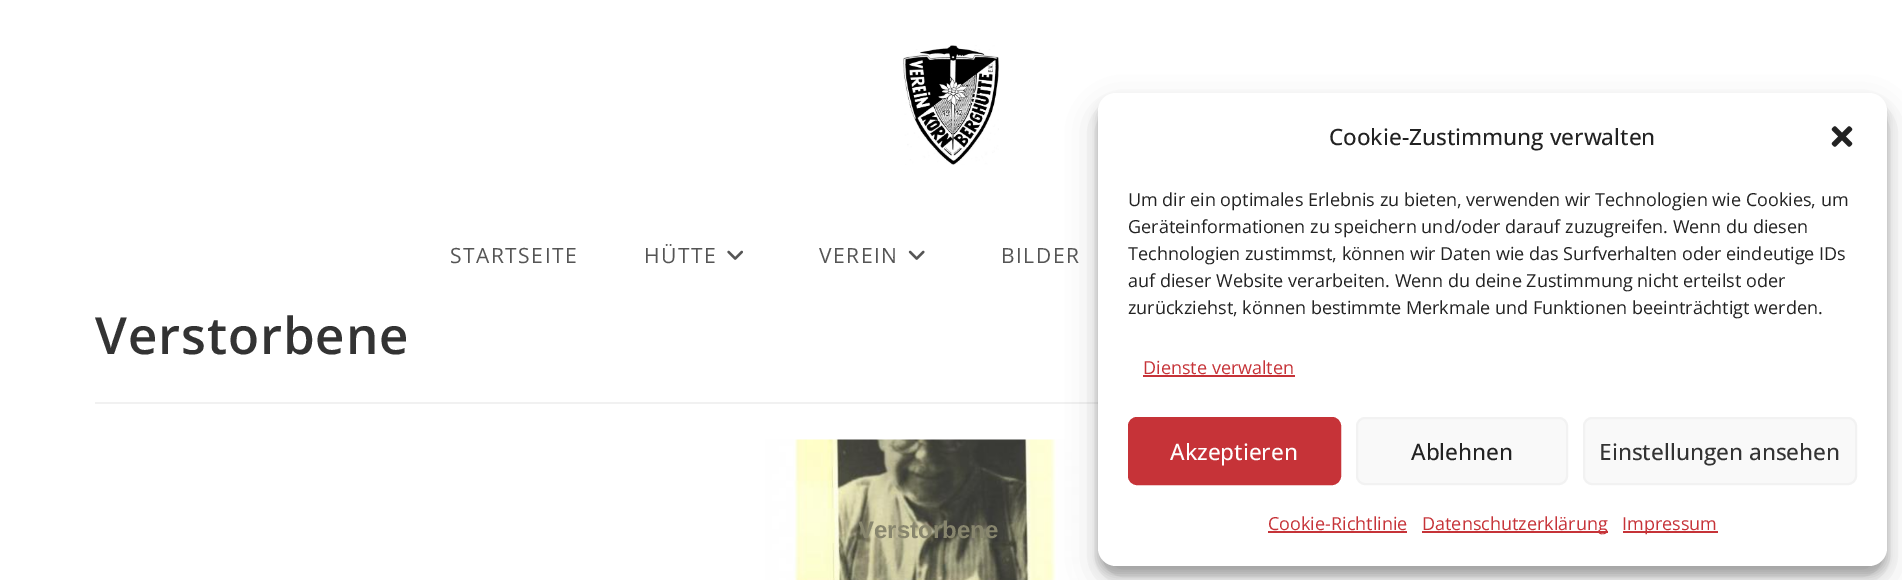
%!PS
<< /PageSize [1902 580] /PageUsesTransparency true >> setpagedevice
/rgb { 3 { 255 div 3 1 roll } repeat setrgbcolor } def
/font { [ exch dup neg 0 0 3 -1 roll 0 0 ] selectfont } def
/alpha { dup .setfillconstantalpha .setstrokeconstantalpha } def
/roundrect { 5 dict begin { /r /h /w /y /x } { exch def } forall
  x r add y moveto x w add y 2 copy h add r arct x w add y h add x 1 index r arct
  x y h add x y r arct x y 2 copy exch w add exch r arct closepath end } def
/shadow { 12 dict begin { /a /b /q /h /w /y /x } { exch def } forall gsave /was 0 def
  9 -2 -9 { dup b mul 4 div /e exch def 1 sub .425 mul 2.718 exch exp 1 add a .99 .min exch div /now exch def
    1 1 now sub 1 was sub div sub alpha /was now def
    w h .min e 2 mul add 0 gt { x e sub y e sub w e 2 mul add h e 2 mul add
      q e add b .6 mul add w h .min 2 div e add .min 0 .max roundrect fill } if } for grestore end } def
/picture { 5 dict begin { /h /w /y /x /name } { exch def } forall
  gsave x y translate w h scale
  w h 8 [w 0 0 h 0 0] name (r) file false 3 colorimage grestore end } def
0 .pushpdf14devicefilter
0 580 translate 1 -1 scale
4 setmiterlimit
255 255 255 rgb
0 0 1902 580 rectfill
(img/1.rgb) 903 45 96 120 picture
(img/2.rgb) 727 250 16 10 picture
(img/3.rgb) 908 250 17 10 picture
241 241 241 rgb
95 402 1003 2 rectfill
(img/4.rgb) 765 439 327 141 picture
0 0 0 rgb
1098 102 789 473 18 4.5 0.23 shadow
1098 108 789 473 18 15 0.19 shadow
255 255 255 rgb
1098 93 789 473 18 roundrect fill
(img/5.rgb) 1831 126 22 21 picture
198 51 56 rgb
1143 375 152 2 rectfill
1129 418 211 66 8 roundrect gsave fill grestore
2 setlinewidth
stroke
249 249 249 rgb
1357 418 210 66 8 roundrect gsave fill grestore
242 242 242 rgb
stroke
249 249 249 rgb
1584 418 272 66 8 roundrect gsave fill grestore
242 242 242 rgb
stroke
[
  [1268 531 139 2 198 51 56]
  [1422 531 186 2 198 51 56]
  [1623 531 95 2 198 51 56]
] { aload pop rgb rectfill } forall
/OpenSans-Regular 21 font
85 85 85 rgb
450 263 moveto 1.5 0 (STARTSEITE) ashow
644 263 moveto 1.5 0 (HÜTTE) ashow
819 263 moveto 1.5 0 (VEREIN) ashow
1001 263 moveto 1.5 0 (BILDER) ashow
/OpenSans-SemiBold 51 font
51 51 51 rgb
95 354 moveto 0.9 0 (Verstorbene) ashow
/LiberationSans-Bold 24 font
136 134 110 rgb
858 538 moveto (Verstorbene) show
/OpenSans-Medium 22.5 font
34 34 34 rgb
1329 145 moveto (Cookie-Zustimmung verwalten) show
/OpenSans-Regular 18 font
[
  [(Um dir ein optimales Erlebnis zu bieten, verwenden wir Technologien wie Cookies, um) 1128 206]
  [(Geräteinformationen zu speichern und/oder darauf zuzugreifen. Wenn du diesen) 1128 233]
  [(Technologien zustimmst, können wir Daten wie das Surfverhalten oder eindeutige IDs) 1128 260]
  [(auf dieser Website verarbeiten. Wenn du deine Zustimmung nicht erteilst oder) 1128 287]
  [(zurückziehst, können bestimmte Merkmale und Funktionen beeinträchtigt werden.) 1128 314]
] { aload pop moveto show } forall
198 51 56 rgb
1143 374 moveto (Dienste verwalten) show
/OpenSans-Medium 22.5 font
255 255 255 rgb
1170 460 moveto (Akzeptieren) show
34 34 34 rgb
1411 460 moveto (Ablehnen) show
51 51 51 rgb
1599 460 moveto (Einstellungen ansehen) show
/OpenSans-Regular 18 font
198 51 56 rgb
[
  [(Cookie-Richtlinie) 1268 530]
  [(Datenschutzerklärung) 1422 530]
  [(Impressum) 1622 530]
] { aload pop moveto show } forall
.poppdf14devicefilter showpage
